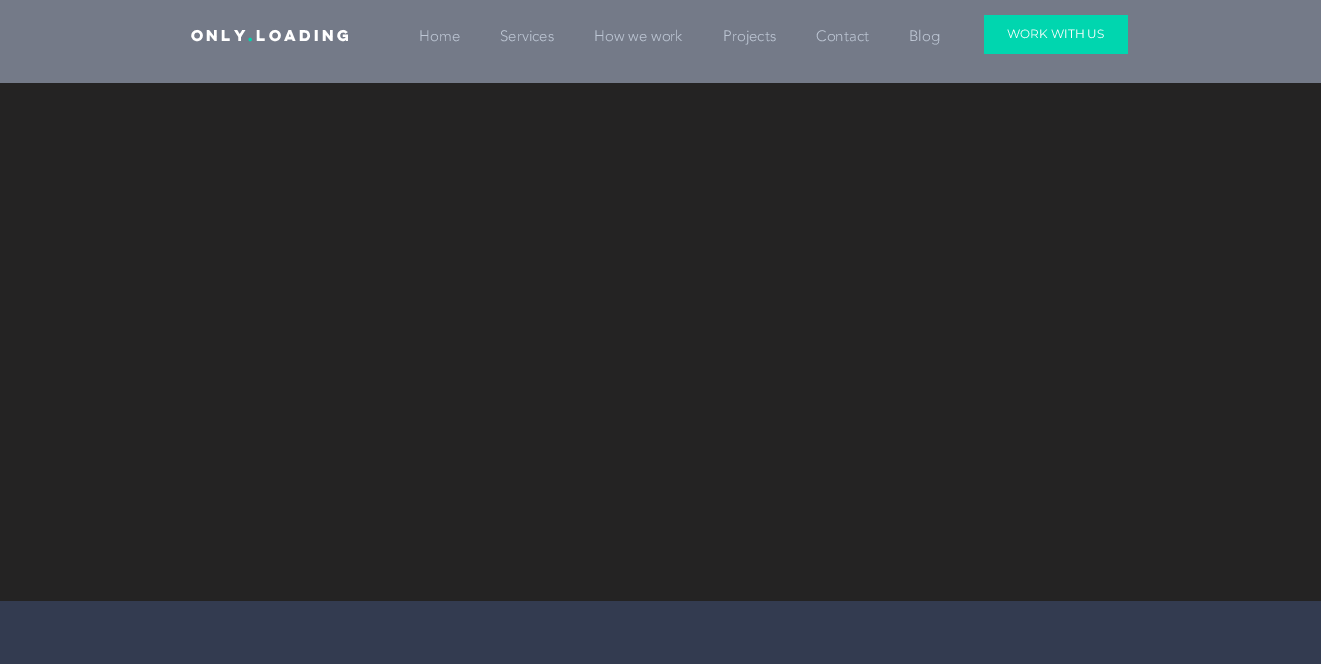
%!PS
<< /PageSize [1321 664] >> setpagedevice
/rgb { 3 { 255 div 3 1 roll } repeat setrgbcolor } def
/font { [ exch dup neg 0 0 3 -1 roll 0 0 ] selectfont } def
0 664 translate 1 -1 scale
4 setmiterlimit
51 59 80 rgb
0 0 1321 664 rectfill
[
  [0 0 1321 83 116 122 136]
  [984 15 144 39 0 214 175]
  [0 83 1321 518 36 35 35]
] { aload pop rgb rectfill } forall
/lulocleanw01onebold-Bold 14 font
255 255 255 rgb
191 41 moveto (ONLY) show
0 214 175 rgb
248 41 moveto 1 0 (.) ashow
255 255 255 rgb
256 41 moveto 1 0 (L) ashow
269 41 moveto (OADING) show
/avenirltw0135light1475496-Light 15 font
190 199 213 rgb
[
  [(Home) 419 41]
  [(Services) 500 41]
  [(How we work) 594 41]
  [(Projects) 723 41]
  [(Contact) 816 41]
  [(Blog) 909 41]
] { aload pop moveto show } forall
/Montserrat-Regular 12 font
255 255 255 rgb
1007 38 moveto (WORK WITH US) show
showpage
